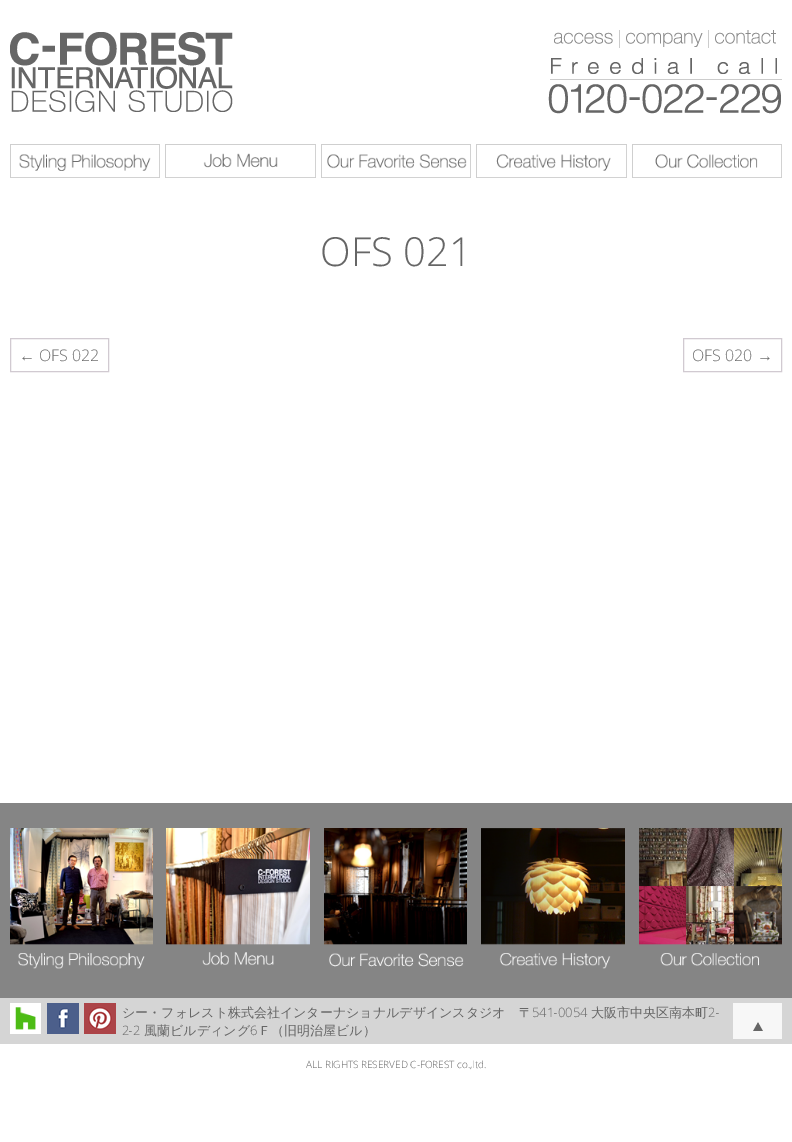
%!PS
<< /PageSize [792 1142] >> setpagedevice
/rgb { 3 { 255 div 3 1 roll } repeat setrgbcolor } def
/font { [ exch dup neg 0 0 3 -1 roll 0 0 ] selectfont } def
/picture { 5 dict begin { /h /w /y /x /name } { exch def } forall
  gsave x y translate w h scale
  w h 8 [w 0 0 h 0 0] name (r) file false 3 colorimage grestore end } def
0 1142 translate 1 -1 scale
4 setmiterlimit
255 255 255 rgb
0 0 792 1142 rectfill
(img/1.rgb) 10 32 223 80 picture
204 204 204 rgb
619 30 1 18 rectfill
(img/2.rgb) 554 32 59 12 picture
708 30 1 18 rectfill
(img/3.rgb) 626 32 77 15 picture
(img/4.rgb) 715 30 61 14 picture
(img/5.rgb) 548 58 234 56 picture
(img/6.rgb) 10 144 150 34 picture
(img/7.rgb) 165 144 151 34 picture
(img/8.rgb) 321 144 150 34 picture
(img/9.rgb) 476 144 151 34 picture
(img/10.rgb) 632 144 150 34 picture
209 202 209 rgb
10.5 338.5 98 33 rectstroke
683.5 338.5 98 33 rectstroke
133 133 133 rgb
0 803 792 195 rectfill
(img/11.rgb) 10 828 143 141 picture
(img/12.rgb) 166 828 144 138 picture
(img/13.rgb) 324 828 143 139 picture
(img/14.rgb) 481 828 144 141 picture
(img/15.rgb) 639 828 143 138 picture
213 213 213 rgb
0 998 792 46 rectfill
(img/16.rgb) 10 1003 31 31 picture
(img/17.rgb) 47 1003 32 31 picture
(img/18.rgb) 84 1003 32 31 picture
(img/19.rgb) 733 1003 49 36 picture
/OpenSans-Light 40 font
102 102 102 rgb
320 266 moveto (OFS 021) show
/LiberationSans-Regular 16 font
110 110 110 rgb
19 361 moveto (←) show
/OpenSans-Light 16 font
39 361 moveto (OFS 022) show
692 361 moveto (OFS 020) show
/LiberationSans-Regular 16 font
757 361 moveto (→) show
/WenQuanYiZenHei-Medium 13 font
102 102 102 rgb
122 1017 moveto (シー・フォレスト株式会社インターナショナルデザインスタジオ　〒) show
/OpenSans-Light 13 font
532 1017 moveto (541) show
/WenQuanYiZenHei-Medium 13 font
554 1017 moveto (-) show
/OpenSans-Light 13 font
558 1017 moveto (0054) show
/WenQuanYiZenHei-Medium 13 font
591 1017 moveto (大阪市中央区南本町) show
/OpenSans-Light 13 font
708 1017 moveto (2) show
/WenQuanYiZenHei-Medium 13 font
716 1017 moveto (-) show
/OpenSans-Light 13 font
122 1035 moveto (2) show
/WenQuanYiZenHei-Medium 13 font
129 1035 moveto (-) show
/OpenSans-Light 13 font
133 1035 moveto (2) show
/WenQuanYiZenHei-Medium 13 font
144 1035 moveto (風蘭ビルディング) show
/OpenSans-Light 13 font
250 1035 moveto (6) show
/WenQuanYiZenHei-Medium 13 font
258 1035 moveto (Ｆ（旧明治屋ビル）) show
/OpenSans-Light 10 font
306 1068 moveto (ALL RIGHTS RESERVED C-FOREST co.,ltd.) show
showpage
